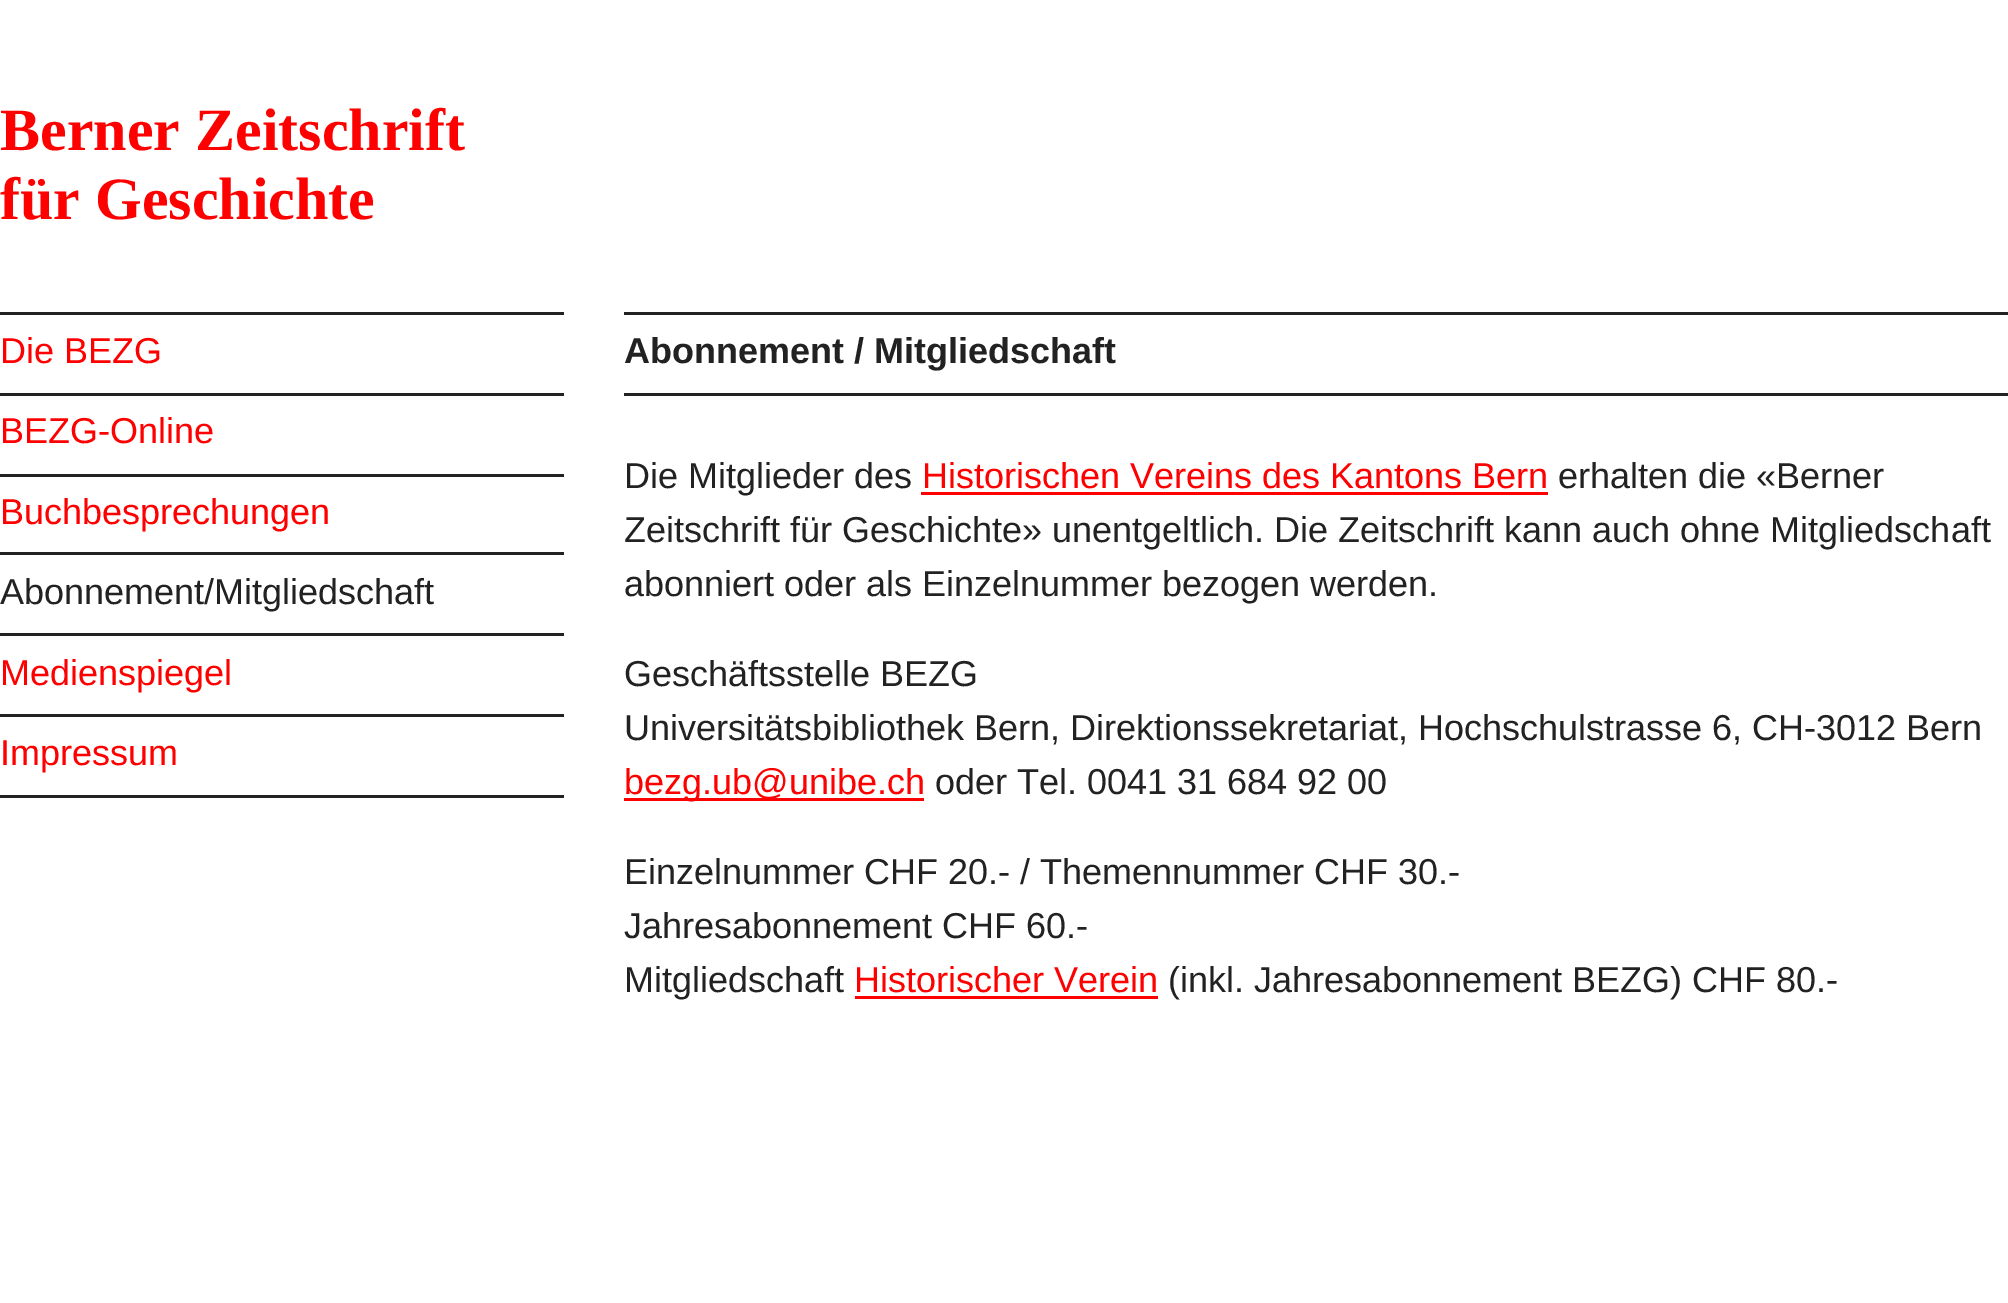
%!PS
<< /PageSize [2008 1303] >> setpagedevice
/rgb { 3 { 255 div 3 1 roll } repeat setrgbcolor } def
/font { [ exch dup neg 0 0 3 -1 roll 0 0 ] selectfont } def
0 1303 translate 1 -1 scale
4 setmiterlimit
255 255 255 rgb
0 0 2008 1303 rectfill
[
  [0 312 564 3 34 34 34]
  [0 393 564 3 34 34 34]
  [0 474 564 3 34 34 34]
  [0 552 564 3 34 34 34]
  [0 633 564 3 34 34 34]
  [0 714 564 3 34 34 34]
  [0 795 564 3 34 34 34]
  [624 312 1384 3 34 34 34]
  [624 393 1384 3 34 34 34]
  [921 492 627 3 255 0 0]
  [624 798 300 3 255 0 0]
  [855 996 303 3 255 0 0]
] { aload pop rgb rectfill } forall
/LiberationSerif-Bold 60 font
0 150 moveto (Berner Zeitschrift) show
0 219 moveto (für Geschichte) show
/LiberationSans-Regular 36 font
[
  [(Die BEZG) 0 363]
  [(BEZG-Online) 0 443]
  [(Buchbesprechungen) 0 524]
] { aload pop moveto show } forall
34 34 34 rgb
0 604 moveto (Abonnement/Mitgliedschaft) show
255 0 0 rgb
0 685 moveto (Medienspiegel) show
0 765 moveto (Impressum) show
/LiberationSans-Bold 36 font
34 34 34 rgb
624 363 moveto (Abonnement / Mitgliedschaft) show
/LiberationSans-Regular 36 font
624 488 moveto (Die Mitglieder des) show
255 0 0 rgb
922 488 moveto (Historischen Vereins des Kantons Bern) show
34 34 34 rgb
[
  [(erhalten die «Berner) 1558 488]
  [(Zeitschrift für Geschichte» unentgeltlich. Die Zeitschrift kann auch ohne Mitgliedschaft) 624 542]
  [(abonniert oder als Einzelnummer bezogen werden.) 624 596]
  [(Geschäftsstelle BEZG) 624 686]
  [(Universitätsbibliothek Bern, Direktionssekretariat, Hochschulstrasse 6, CH-3012 Bern) 624 740]
] { aload pop moveto show } forall
255 0 0 rgb
624 794 moveto (bezg.ub@unibe.ch) show
34 34 34 rgb
[
  [(oder Tel. 0041 31 684 92 00) 935 794]
  [(Einzelnummer CHF 20.- / Themennummer CHF 30.-) 624 884]
  [(Jahresabonnement CHF 60.-) 624 938]
  [(Mitgliedschaft) 624 992]
] { aload pop moveto show } forall
255 0 0 rgb
854 992 moveto (Historischer Verein) show
34 34 34 rgb
1168 992 moveto (\(inkl. Jahresabonnement BEZG\) CHF 80.-) show
showpage
